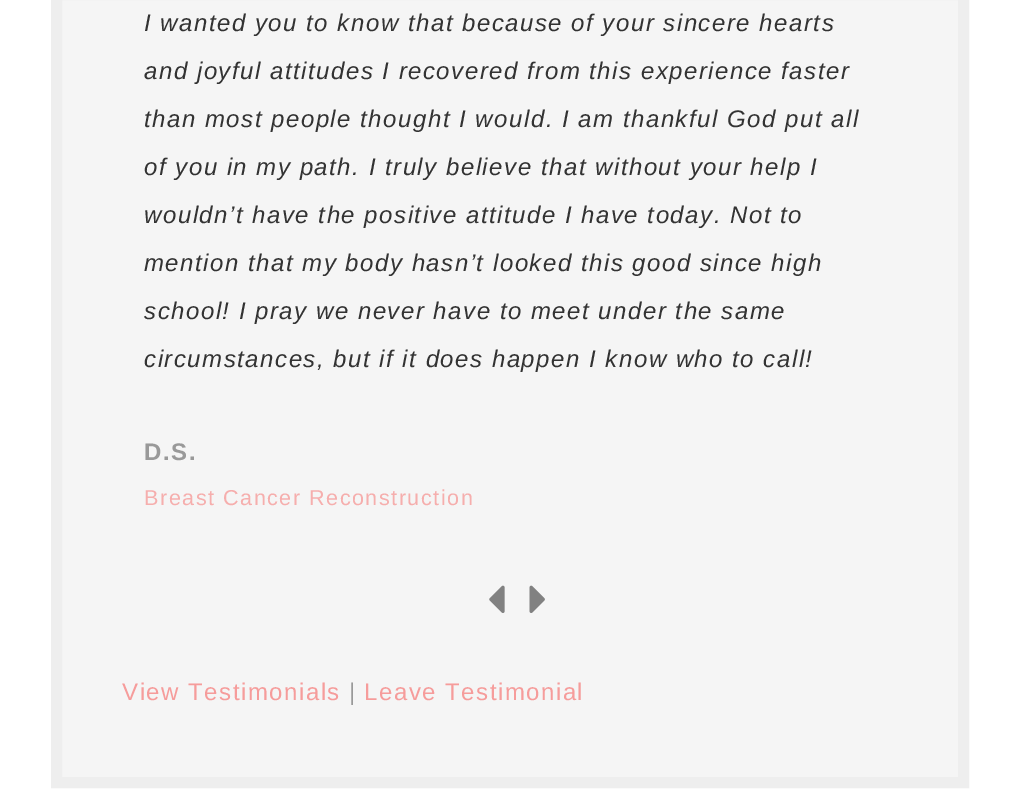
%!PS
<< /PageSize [1020 804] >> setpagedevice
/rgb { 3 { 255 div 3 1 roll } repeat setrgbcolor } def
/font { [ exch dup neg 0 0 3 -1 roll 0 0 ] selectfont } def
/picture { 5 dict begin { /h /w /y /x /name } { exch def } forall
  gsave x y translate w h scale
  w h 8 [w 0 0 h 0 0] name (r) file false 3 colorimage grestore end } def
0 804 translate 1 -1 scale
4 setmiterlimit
255 255 255 rgb
0 0 1020 804 rectfill
245 245 245 rgb
56.5 -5.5 moveto 963.5 -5.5 lineto 963.5 782.5 lineto 56.5 782.5 lineto closepath gsave fill grestore
238 238 238 rgb
11 setlinewidth
stroke
(img/1.rgb) 489 585 16 28 picture
(img/2.rgb) 529 585 16 28 picture
/LiberationSans-Italic 24 font
51 51 51 rgb
144 31 moveto 1.5 0 (I wanted you to know that because of your sincere hearts) ashow
144 79 moveto 1.5 0 (and joyful attitudes I recovered from this experience faster) ashow
144 127 moveto 1.5 0 (than most people thought I would. I am thankful God put all) ashow
144 175 moveto 1.5 0 (of you in my path. I truly believe that without your help I) ashow
144 223 moveto 1.5 0 (wouldn’t have the positive attitude I have today. Not to) ashow
144 271 moveto 1.5 0 (mention that my body hasn’t looked this good since high) ashow
144 319 moveto 1.5 0 (school! I pray we never have to meet under the same) ashow
144 367 moveto 1.5 0 (circumstances, but if it does happen I know who to call!) ashow
/LiberationSans-Bold 24 font
153 153 153 rgb
144 460 moveto 1.5 0 (D.S.) ashow
/LiberationSans-Regular 21.6 font
246 174 173 rgb
144 505 moveto 1.5 0 (Breast Cancer Reconstruction) ashow
/LiberationSans-Regular 24 font
246 156 155 rgb
122 700 moveto 1.5 0 (View Testimonials) ashow
153 153 153 rgb
349 700 moveto 1.5 0 (|) ashow
246 156 155 rgb
364 700 moveto 1.5 0 (Leave Testimonial) ashow
showpage
